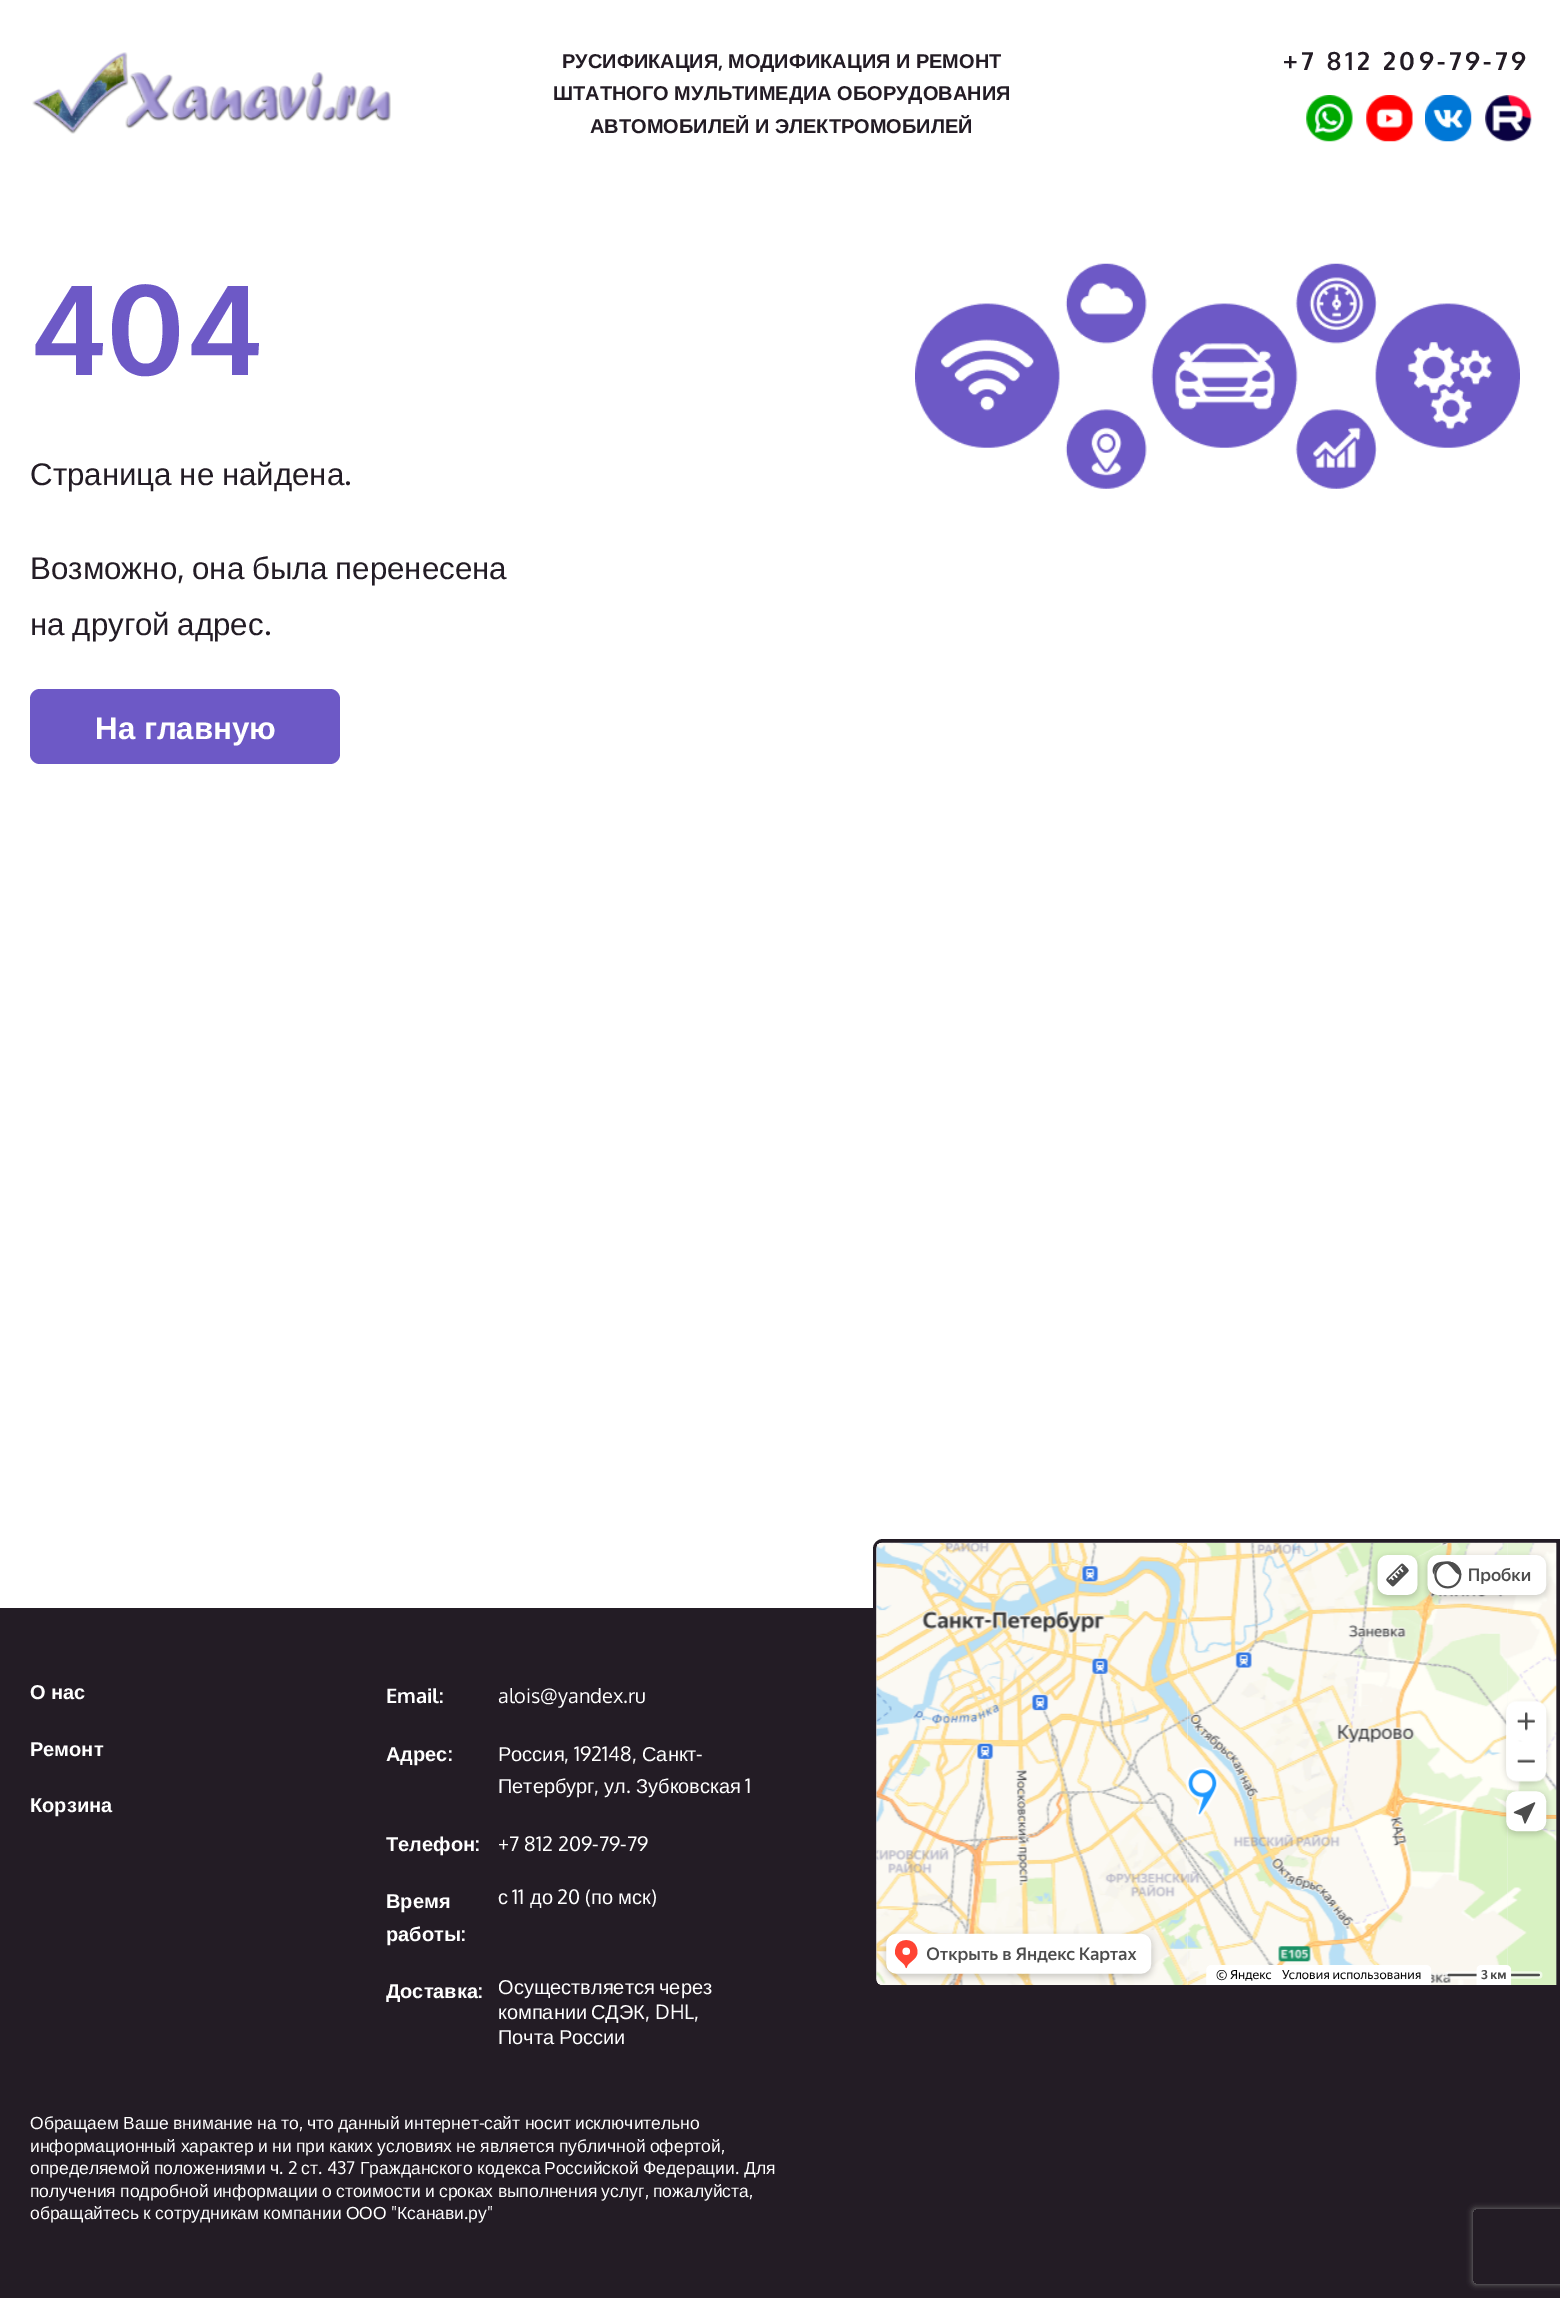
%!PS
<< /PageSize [1560 2301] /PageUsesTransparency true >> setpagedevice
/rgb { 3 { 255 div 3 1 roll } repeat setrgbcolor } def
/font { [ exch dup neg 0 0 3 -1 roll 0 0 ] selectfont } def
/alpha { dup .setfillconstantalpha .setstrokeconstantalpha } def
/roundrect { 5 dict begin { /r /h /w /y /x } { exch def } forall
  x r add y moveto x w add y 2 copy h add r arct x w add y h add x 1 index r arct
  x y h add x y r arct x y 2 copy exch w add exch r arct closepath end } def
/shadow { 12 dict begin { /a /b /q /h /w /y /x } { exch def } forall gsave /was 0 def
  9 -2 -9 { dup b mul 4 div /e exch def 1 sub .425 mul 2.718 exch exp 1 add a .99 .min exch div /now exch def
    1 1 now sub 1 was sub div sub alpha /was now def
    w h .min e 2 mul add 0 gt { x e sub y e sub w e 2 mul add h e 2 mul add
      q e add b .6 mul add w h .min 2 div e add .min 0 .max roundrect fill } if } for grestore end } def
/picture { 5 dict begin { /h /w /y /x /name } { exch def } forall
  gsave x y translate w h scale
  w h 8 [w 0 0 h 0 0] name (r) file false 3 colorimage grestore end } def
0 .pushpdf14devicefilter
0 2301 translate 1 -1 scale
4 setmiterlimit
255 255 255 rgb
0 0 1560 2301 rectfill
(img/1.rgb) 32 52 359 82 picture
(img/2.rgb) 1306 95 47 47 picture
(img/3.rgb) 1366 95 47 47 picture
(img/4.rgb) 1425 95 47 47 picture
(img/5.rgb) 1485 95 47 47 picture
109 89 198 rgb
30 689 310 75 10 roundrect fill
(img/6.rgb) 915 263 605 226 picture
35 28 37 rgb
0 1608 1560 690 rectfill
4 setlinewidth
883 1541 moveto 1558 1541 lineto 1558 1987 lineto 883 1987 lineto 878.5 1987 875 1983.5 875 1979 curveto 875 1549 lineto 875 1544.5 878.5 1541 883 1541 curveto closepath stroke
(img/7.rgb) 876 1542 681 443 picture
gsave
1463 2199 moveto 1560 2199 lineto 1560 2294 lineto 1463 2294 lineto closepath 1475.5 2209 moveto 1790.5 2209 lineto 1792 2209 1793 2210 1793 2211.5 curveto 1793 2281.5 lineto 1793 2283 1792 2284 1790.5 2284 curveto 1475.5 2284 lineto 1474 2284 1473 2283 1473 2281.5 curveto 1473 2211.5 lineto 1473 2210 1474 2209 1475.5 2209 curveto closepath eoclip newpath
128 128 128 rgb
1473 2209 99 75 2.5 3 1 shadow
grestore
/LiberationSans-Bold 20 font
562 68 moveto (РУСИФИКАЦИЯ) show
/Oxygen-Bold 20 font
718 68 moveto (,) show
/LiberationSans-Bold 20 font
[
  [(МОДИФИКАЦИЯ И РЕМОНТ) 728 68]
  [(ШТАТНОГО МУЛЬТИМЕДИА ОБОРУДОВАНИЯ) 553 100]
  [(АВТОМОБИЛЕЙ И ЭЛЕКТРОМОБИЛЕЙ) 590 133]
] { aload pop moveto show } forall
/Oxygen-Bold 25 font
1283 70 moveto 3.5 0 (+7 812 209-79-79) ashow
/Oxygen-Bold 125 font
109 89 198 rgb
30 375 moveto (404) show
/LiberationSans-Regular 31.25 font
35 28 37 rgb
30 485 moveto -1 0 32 (Страница не найдена) widthshow
/Oxygen-Regular 31.25 font
344 485 moveto (.) show
/LiberationSans-Regular 31.25 font
30 579 moveto (Возможно) show
/Oxygen-Regular 31.25 font
177 579 moveto (,) show
/LiberationSans-Regular 31.25 font
192 579 moveto -1 0 32 (она была перенесена) widthshow
30 635 moveto -1 0 32 (на другой адрес) widthshow
/Oxygen-Regular 31.25 font
264 635 moveto (.) show
/LiberationSans-Bold 31.25 font
255 255 255 rgb
95 739 moveto (На главную) show
/LiberationSans-Bold 20 font
[
  [(О нас) 30 1699]
  [(Ремонт) 30 1756]
  [(Корзина) 30 1812]
] { aload pop moveto show } forall
/Oxygen-Bold 20 font
386 1703 moveto (Email:) show
/Oxygen-Regular 20 font
498 1703 moveto (alois@yandex.ru) show
/LiberationSans-Bold 20 font
386 1761 moveto (Адрес) show
/Oxygen-Bold 20 font
448 1761 moveto (:) show
/LiberationSans-Regular 20 font
498 1761 moveto (Россия) show
/Oxygen-Regular 20 font
564 1761 moveto (, 192148,) show
/LiberationSans-Regular 20 font
642 1761 moveto (Санкт) show
/Oxygen-Regular 20 font
696 1761 moveto (-) show
/LiberationSans-Regular 20 font
498 1793 moveto (Петербург) show
/Oxygen-Regular 20 font
594 1793 moveto (,) show
/LiberationSans-Regular 20 font
604 1793 moveto (ул) show
/Oxygen-Regular 20 font
626 1793 moveto (.) show
/LiberationSans-Regular 20 font
636 1793 moveto (Зубковская) show
/Oxygen-Regular 20 font
745 1793 moveto (1) show
/LiberationSans-Bold 20 font
386 1851 moveto (Телефон) show
/Oxygen-Bold 20 font
475 1851 moveto (:) show
/Oxygen-Regular 20 font
498 1851 moveto (+7 812 209-79-79) show
/LiberationSans-Bold 20 font
386 1908 moveto (Время) show
386 1941 moveto (работы) show
/Oxygen-Bold 20 font
461 1941 moveto (:) show
/LiberationSans-Regular 20 font
498 1904 moveto (с) show
/Oxygen-Regular 20 font
512 1904 moveto (11) show
/LiberationSans-Regular 20 font
530 1904 moveto (до) show
/Oxygen-Regular 20 font
557 1904 moveto (20 \() show
/LiberationSans-Regular 20 font
591 1904 moveto (по) show
618 1904 moveto (мск) show
/Oxygen-Regular 20 font
651 1904 moveto (\)) show
/LiberationSans-Bold 20 font
386 1998 moveto (Доставка) show
/Oxygen-Bold 20 font
478 1998 moveto (:) show
/LiberationSans-Regular 20 font
498 1994 moveto -1 0 32 (Осуществляется через) widthshow
498 2019 moveto (компании) show
591 2019 moveto (СДЭК) show
/Oxygen-Regular 20 font
645 2019 moveto (, DHL,) show
/LiberationSans-Regular 20 font
498 2044 moveto -1 0 32 (Почта России) widthshow
/LiberationSans-Regular 17.5 font
30 2129 moveto -0.5 0 32 (Обращаем Ваше внимание на то) widthshow
307 2129 moveto -0.5 0 32 (что данный интернет) widthshow
/Oxygen-Regular 17.5 font
479 2129 moveto (-) show
/LiberationSans-Regular 17.5 font
484 2129 moveto -0.5 0 32 (сайт носит исключительно) widthshow
/Oxygen-Regular 17.5 font
299 2129 moveto (,) show
/LiberationSans-Regular 17.5 font
30 2152 moveto -0.5 0 32 (информационный характер и ни при каких условиях не является публичной офертой) widthshow
/Oxygen-Regular 17.5 font
721 2152 moveto (,) show
/LiberationSans-Regular 17.5 font
[
  [(определяемой) 30 2174]
  [(положениями) 154 2174]
  [(ч) 270 2174]
] { aload pop moveto show } forall
/Oxygen-Regular 17.5 font
279 2174 moveto (. 2) show
/LiberationSans-Regular 17.5 font
301 2174 moveto (ст) show
/Oxygen-Regular 17.5 font
318 2174 moveto (. 437) show
/LiberationSans-Regular 17.5 font
[
  [(Гражданского) 360 2174]
  [(кодекса) 477 2174]
  [(Российской) 544 2174]
  [(Федерации) 643 2174]
] { aload pop moveto show } forall
/Oxygen-Regular 17.5 font
735 2174 moveto (.) show
/LiberationSans-Regular 17.5 font
744 2174 moveto (Для) show
30 2197 moveto -0.5 0 32 (получения подробной информации о стоимости и сроках выполнения услуг) widthshow
/Oxygen-Regular 17.5 font
645 2197 moveto (,) show
/LiberationSans-Regular 17.5 font
653 2197 moveto (пожалуйста) show
/Oxygen-Regular 17.5 font
749 2197 moveto (,) show
/LiberationSans-Regular 17.5 font
30 2219 moveto -0.5 0 32 (обращайтесь к сотрудникам компании ООО) widthshow
/Oxygen-Regular 17.5 font
391 2219 moveto (") show
/LiberationSans-Regular 17.5 font
397 2219 moveto (Ксанави) show
/Oxygen-Regular 17.5 font
487 2219 moveto (") show
464 2219 moveto (.) show
/LiberationSans-Regular 17.5 font
468 2219 moveto (ру) show
.poppdf14devicefilter showpage
